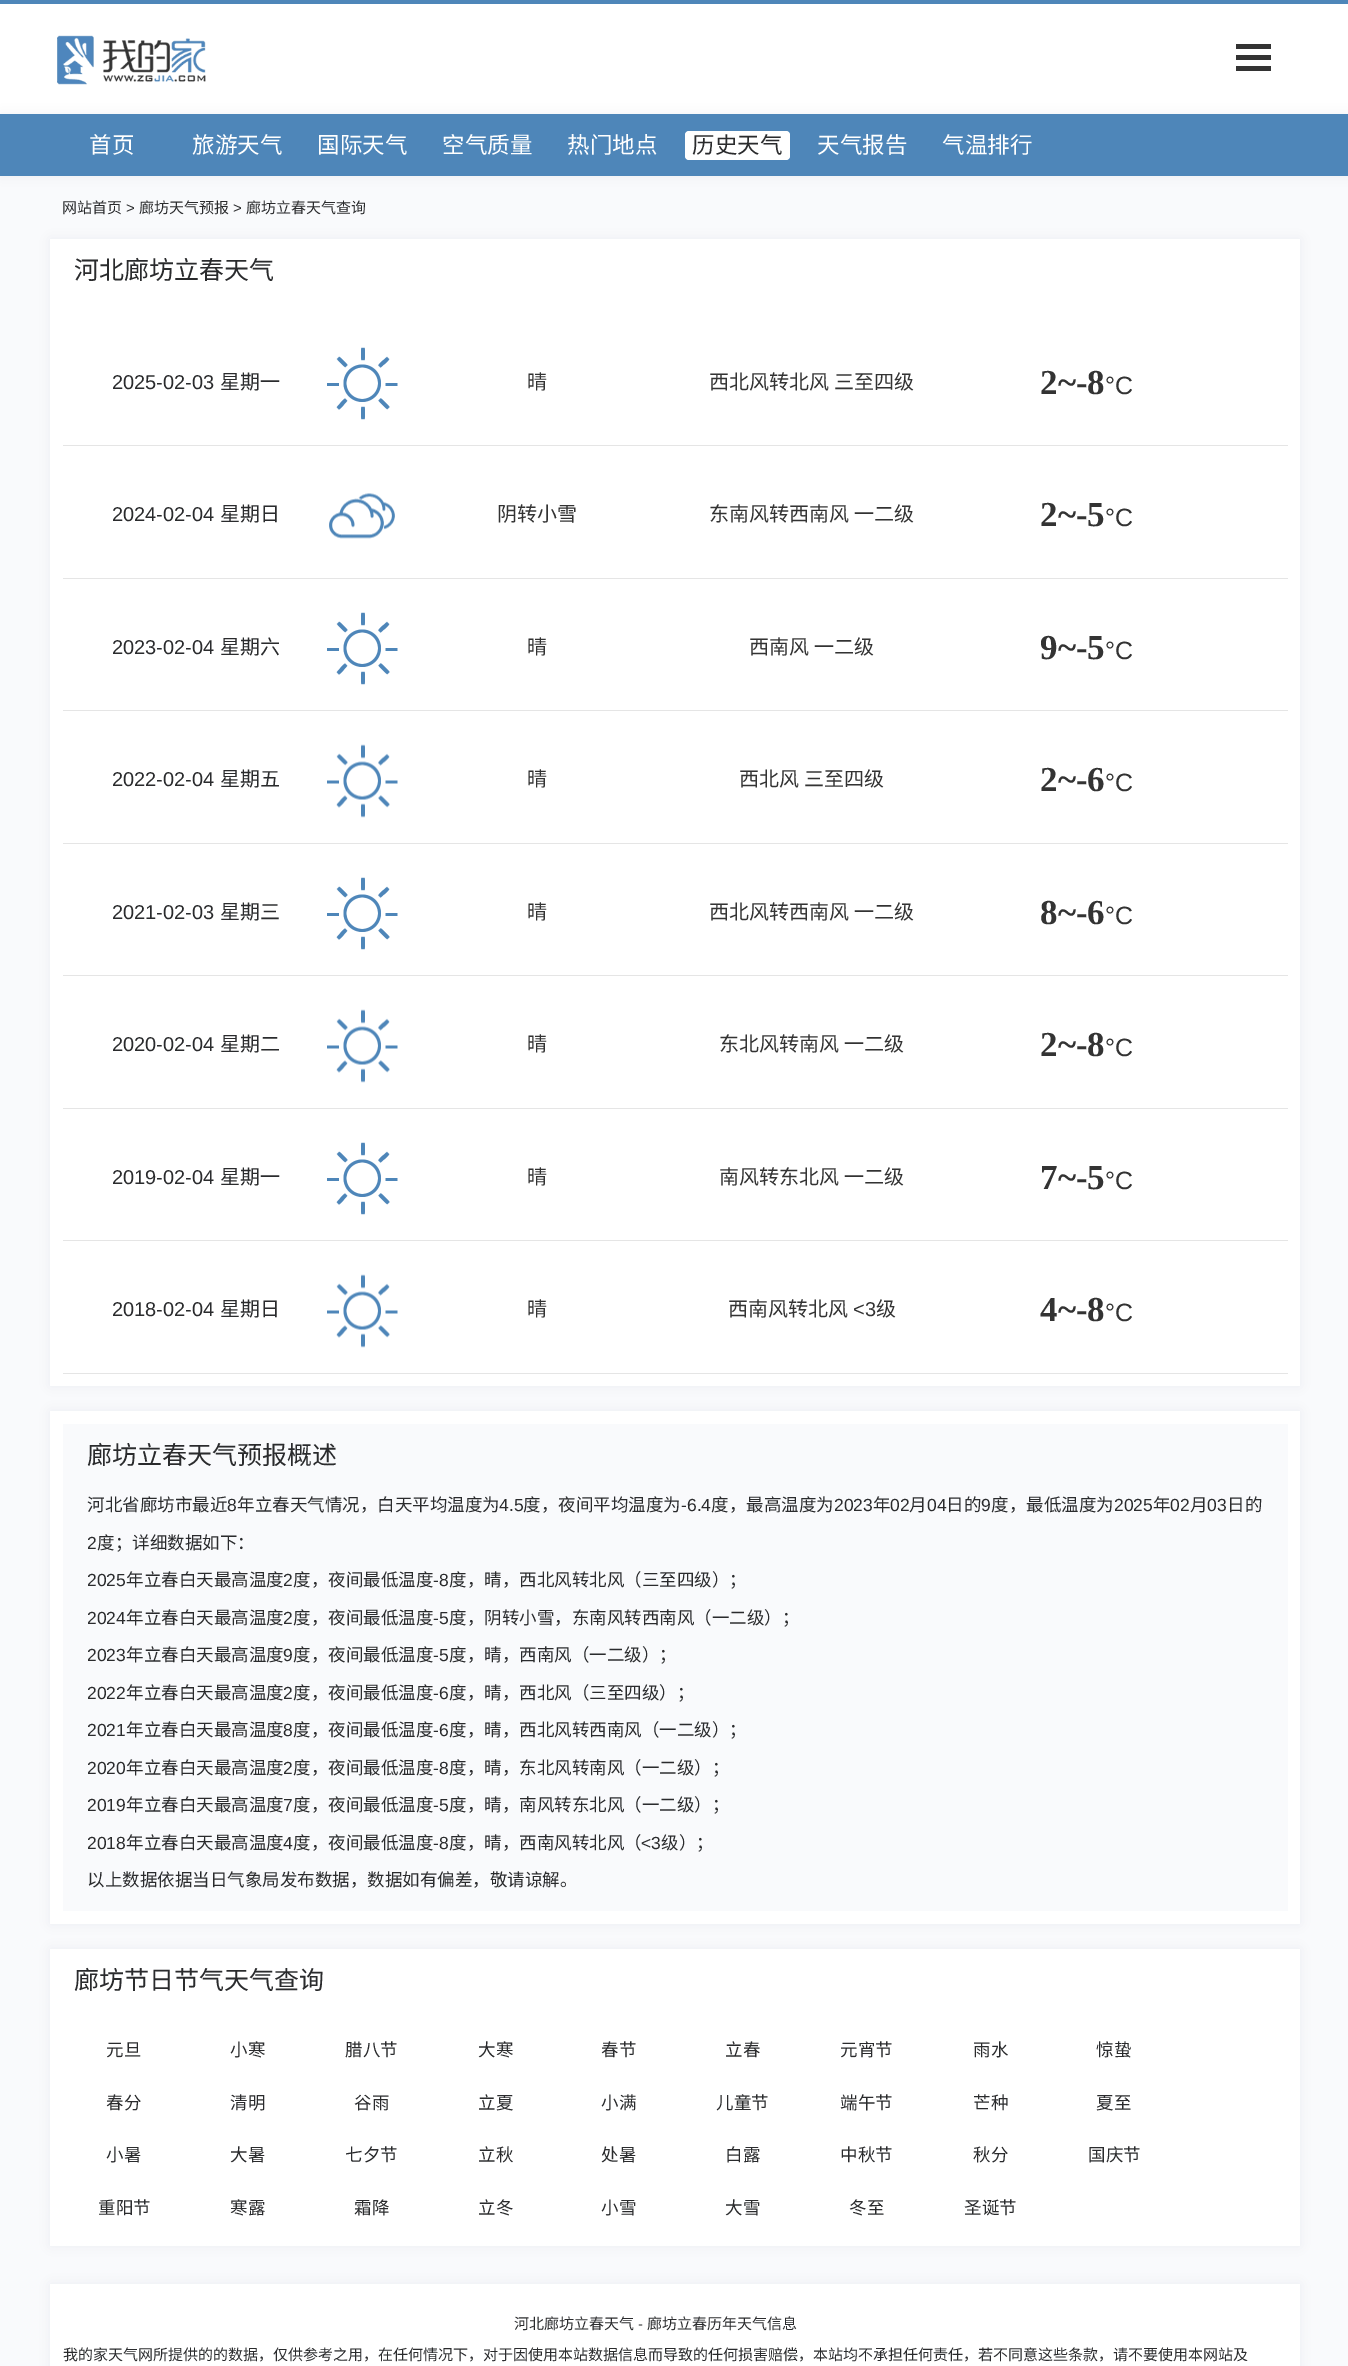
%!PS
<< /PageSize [1348 2366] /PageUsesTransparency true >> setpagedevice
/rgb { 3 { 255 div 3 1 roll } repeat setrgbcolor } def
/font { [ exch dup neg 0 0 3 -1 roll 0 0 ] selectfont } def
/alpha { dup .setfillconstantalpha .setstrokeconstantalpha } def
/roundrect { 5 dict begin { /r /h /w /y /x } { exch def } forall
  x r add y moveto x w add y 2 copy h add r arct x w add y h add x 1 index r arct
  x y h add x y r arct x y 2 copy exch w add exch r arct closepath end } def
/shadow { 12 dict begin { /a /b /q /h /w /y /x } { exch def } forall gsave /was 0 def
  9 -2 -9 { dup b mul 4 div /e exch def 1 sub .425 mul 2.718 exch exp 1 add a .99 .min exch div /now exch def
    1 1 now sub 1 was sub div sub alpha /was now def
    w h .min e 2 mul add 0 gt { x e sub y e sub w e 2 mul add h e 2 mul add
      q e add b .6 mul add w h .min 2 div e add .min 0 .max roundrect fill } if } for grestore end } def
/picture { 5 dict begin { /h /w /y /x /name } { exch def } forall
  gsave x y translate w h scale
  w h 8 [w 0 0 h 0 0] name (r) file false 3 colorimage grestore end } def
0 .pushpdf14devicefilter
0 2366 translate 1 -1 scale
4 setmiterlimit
249 250 252 rgb
0 0 1348 2366 rectfill
255 255 255 rgb
0 4 1348 110 rectfill
78 134 185 rgb
0 0 1348 4 rectfill
(img/1.rgb) 57 35 149 50 picture
[
  [1236 44 35 5 51 51 51]
  [1236 55 35 5 51 51 51]
  [1236 66 35 5 51 51 51]
] { aload pop rgb rectfill } forall
0 42 116 rgb
0 114 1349 62 0 6 0.06 shadow
78 134 185 rgb
0 114 1348 62 rectfill
255 255 255 rgb
685 131 105 29 4 roundrect fill
0 42 116 rgb
50 239 1250 1147 0 6 0.06 shadow
255 255 255 rgb
50 239 1250 1147 rectfill
229 229 229 rgb
63 445 1225 1 rectfill
(img/2.rgb) 327 347 71 73 picture
63 578 1225 1 rectfill
(img/3.rgb) 329 493 66 46 picture
63 710 1225 1 rectfill
(img/2.rgb) 327 612 71 73 picture
63 843 1225 1 rectfill
(img/4.rgb) 327 744 71 74 picture
63 975 1225 1 rectfill
(img/2.rgb) 327 877 71 73 picture
63 1108 1225 1 rectfill
(img/4.rgb) 327 1009 71 74 picture
63 1240 1225 1 rectfill
(img/2.rgb) 327 1142 71 73 picture
63 1373 1225 1 rectfill
(img/4.rgb) 327 1274 71 74 picture
0 42 116 rgb
50 1411 1250 513 0 6 0.06 shadow
255 255 255 rgb
50 1411 1250 513 rectfill
249 250 252 rgb
63 1424 1225 487 rectfill
0 42 116 rgb
50 1949 1250 297 0 6 0.06 shadow
255 255 255 rgb
50 1949 1250 297 rectfill
0 42 116 rgb
50 2284 1250 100 0 6 0.06 shadow
255 255 255 rgb
50 2284 1250 82 rectfill
/NotoSansCJKSC-Regular 22.5 font
[
  [(首页) 89 153]
  [(旅游天气) 192 153]
  [(国际天气) 317 153]
  [(空气质量) 442 153]
  [(热门地点) 567 153]
] { aload pop moveto show } forall
42 43 45 rgb
692 153 moveto (历史天气) show
255 255 255 rgb
817 153 moveto (天气报告) show
942 153 moveto (气温排行) show
/NotoSansCJKSC-Regular 15 font
42 43 45 rgb
62 213 moveto (网站首页) show
/LiberationSans-Regular 15 font
126 213 moveto (>) show
/NotoSansCJKSC-Regular 15 font
139 213 moveto (廊坊天气预报) show
/LiberationSans-Regular 15 font
233 213 moveto (>) show
/NotoSansCJKSC-Regular 15 font
246 213 moveto (廊坊立春天气查询) show
/NotoSansCJKSC-Regular 25 font
74 279 moveto (河北廊坊立春天气) show
/LiberationSans-Regular 20 font
112 389 moveto (2025-02-03) show
/NotoSansCJKSC-Regular 20 font
220 389 moveto (星期一) show
51 51 51 rgb
527 389 moveto (晴) show
709 389 moveto 1 0 32 (西北风转北风 三至四级) widthshow
/LiberationSerif-Bold 35 font
1040 394 moveto (2~-8) show
/LiberationSans-Regular 25 font
1105 394 moveto (°C) show
/LiberationSans-Regular 20 font
42 43 45 rgb
112 521 moveto (2024-02-04) show
/NotoSansCJKSC-Regular 20 font
220 521 moveto (星期日) show
51 51 51 rgb
497 521 moveto (阴转小雪) show
709 521 moveto 1 0 32 (东南风转西南风 一二级) widthshow
/LiberationSerif-Bold 35 font
1040 526 moveto (2~-5) show
/LiberationSans-Regular 25 font
1105 526 moveto (°C) show
/LiberationSans-Regular 20 font
42 43 45 rgb
112 654 moveto (2023-02-04) show
/NotoSansCJKSC-Regular 20 font
220 654 moveto (星期六) show
51 51 51 rgb
527 654 moveto (晴) show
749 654 moveto 1 0 32 (西南风 一二级) widthshow
/LiberationSerif-Bold 35 font
1040 659 moveto (9~-5) show
/LiberationSans-Regular 25 font
1105 659 moveto (°C) show
/LiberationSans-Regular 20 font
42 43 45 rgb
112 786 moveto (2022-02-04) show
/NotoSansCJKSC-Regular 20 font
220 786 moveto (星期五) show
51 51 51 rgb
527 786 moveto (晴) show
739 786 moveto 1 0 32 (西北风 三至四级) widthshow
/LiberationSerif-Bold 35 font
1040 791 moveto (2~-6) show
/LiberationSans-Regular 25 font
1105 791 moveto (°C) show
/LiberationSans-Regular 20 font
42 43 45 rgb
112 919 moveto (2021-02-03) show
/NotoSansCJKSC-Regular 20 font
220 919 moveto (星期三) show
51 51 51 rgb
527 919 moveto (晴) show
709 919 moveto 1 0 32 (西北风转西南风 一二级) widthshow
/LiberationSerif-Bold 35 font
1040 924 moveto (8~-6) show
/LiberationSans-Regular 25 font
1105 924 moveto (°C) show
/LiberationSans-Regular 20 font
42 43 45 rgb
112 1051 moveto (2020-02-04) show
/NotoSansCJKSC-Regular 20 font
220 1051 moveto (星期二) show
51 51 51 rgb
527 1051 moveto (晴) show
719 1051 moveto 1 0 32 (东北风转南风 一二级) widthshow
/LiberationSerif-Bold 35 font
1040 1056 moveto (2~-8) show
/LiberationSans-Regular 25 font
1105 1056 moveto (°C) show
/LiberationSans-Regular 20 font
42 43 45 rgb
112 1184 moveto (2019-02-04) show
/NotoSansCJKSC-Regular 20 font
220 1184 moveto (星期一) show
51 51 51 rgb
527 1184 moveto (晴) show
719 1184 moveto 1 0 32 (南风转东北风 一二级) widthshow
/LiberationSerif-Bold 35 font
1040 1189 moveto (7~-5) show
/LiberationSans-Regular 25 font
1105 1189 moveto (°C) show
/LiberationSans-Regular 20 font
42 43 45 rgb
112 1316 moveto (2018-02-04) show
/NotoSansCJKSC-Regular 20 font
220 1316 moveto (星期日) show
51 51 51 rgb
527 1316 moveto (晴) show
728 1316 moveto (西南风转北风) show
/LiberationSans-Regular 20 font
853 1316 moveto (<3) show
/NotoSansCJKSC-Regular 20 font
876 1316 moveto (级) show
/LiberationSerif-Bold 35 font
1040 1321 moveto (4~-8) show
/LiberationSans-Regular 25 font
1105 1321 moveto (°C) show
/NotoSansCJKSC-Regular 25 font
42 43 45 rgb
87 1464 moveto (廊坊立春天气预报概述) show
/NotoSansCJKSC-Regular 17.5 font
87 1511 moveto (河北省廊坊市最近) show
/LiberationSans-Regular 17.5 font
227 1511 moveto (8) show
/NotoSansCJKSC-Regular 17.5 font
237 1511 moveto (年立春天气情况，白天平均温度为) show
/LiberationSans-Regular 17.5 font
499 1511 moveto (4.5) show
/NotoSansCJKSC-Regular 17.5 font
523 1511 moveto (度，夜间平均温度为) show
/LiberationSans-Regular 17.5 font
681 1511 moveto (-6.4) show
/NotoSansCJKSC-Regular 17.5 font
711 1511 moveto (度，最高温度为) show
/LiberationSans-Regular 17.5 font
834 1511 moveto (2023) show
/NotoSansCJKSC-Regular 17.5 font
873 1511 moveto (年) show
/LiberationSans-Regular 17.5 font
890 1511 moveto (02) show
/NotoSansCJKSC-Regular 17.5 font
909 1511 moveto (月) show
/LiberationSans-Regular 17.5 font
927 1511 moveto (04) show
/NotoSansCJKSC-Regular 17.5 font
946 1511 moveto (日的) show
/LiberationSans-Regular 17.5 font
981 1511 moveto (9) show
/NotoSansCJKSC-Regular 17.5 font
991 1511 moveto (度，最低温度为) show
/LiberationSans-Regular 17.5 font
1114 1511 moveto (2025) show
/NotoSansCJKSC-Regular 17.5 font
1153 1511 moveto (年) show
/LiberationSans-Regular 17.5 font
1170 1511 moveto (02) show
/NotoSansCJKSC-Regular 17.5 font
1190 1511 moveto (月) show
/LiberationSans-Regular 17.5 font
1207 1511 moveto (03) show
/NotoSansCJKSC-Regular 17.5 font
1227 1511 moveto (日的) show
/LiberationSans-Regular 17.5 font
87 1549 moveto (2) show
/NotoSansCJKSC-Regular 17.5 font
97 1549 moveto (度；详细数据如下：) show
/LiberationSans-Regular 17.5 font
87 1586 moveto (2025) show
/NotoSansCJKSC-Regular 17.5 font
126 1586 moveto (年立春白天最高温度) show
/LiberationSans-Regular 17.5 font
283 1586 moveto (2) show
/NotoSansCJKSC-Regular 17.5 font
293 1586 moveto (度，夜间最低温度) show
/LiberationSans-Regular 17.5 font
433 1586 moveto (-8) show
/NotoSansCJKSC-Regular 17.5 font
449 1586 moveto (度，晴，西北风转北风（三至四级）；) show
/LiberationSans-Regular 17.5 font
87 1624 moveto (2024) show
/NotoSansCJKSC-Regular 17.5 font
126 1624 moveto (年立春白天最高温度) show
/LiberationSans-Regular 17.5 font
283 1624 moveto (2) show
/NotoSansCJKSC-Regular 17.5 font
293 1624 moveto (度，夜间最低温度) show
/LiberationSans-Regular 17.5 font
433 1624 moveto (-5) show
/NotoSansCJKSC-Regular 17.5 font
449 1624 moveto (度，阴转小雪，东南风转西南风（一二级）；) show
/LiberationSans-Regular 17.5 font
87 1661 moveto (2023) show
/NotoSansCJKSC-Regular 17.5 font
126 1661 moveto (年立春白天最高温度) show
/LiberationSans-Regular 17.5 font
283 1661 moveto (9) show
/NotoSansCJKSC-Regular 17.5 font
293 1661 moveto (度，夜间最低温度) show
/LiberationSans-Regular 17.5 font
433 1661 moveto (-5) show
/NotoSansCJKSC-Regular 17.5 font
449 1661 moveto (度，晴，西南风（一二级）；) show
/LiberationSans-Regular 17.5 font
87 1699 moveto (2022) show
/NotoSansCJKSC-Regular 17.5 font
126 1699 moveto (年立春白天最高温度) show
/LiberationSans-Regular 17.5 font
283 1699 moveto (2) show
/NotoSansCJKSC-Regular 17.5 font
293 1699 moveto (度，夜间最低温度) show
/LiberationSans-Regular 17.5 font
433 1699 moveto (-6) show
/NotoSansCJKSC-Regular 17.5 font
449 1699 moveto (度，晴，西北风（三至四级）；) show
/LiberationSans-Regular 17.5 font
87 1736 moveto (2021) show
/NotoSansCJKSC-Regular 17.5 font
126 1736 moveto (年立春白天最高温度) show
/LiberationSans-Regular 17.5 font
283 1736 moveto (8) show
/NotoSansCJKSC-Regular 17.5 font
293 1736 moveto (度，夜间最低温度) show
/LiberationSans-Regular 17.5 font
433 1736 moveto (-6) show
/NotoSansCJKSC-Regular 17.5 font
449 1736 moveto (度，晴，西北风转西南风（一二级）；) show
/LiberationSans-Regular 17.5 font
87 1774 moveto (2020) show
/NotoSansCJKSC-Regular 17.5 font
126 1774 moveto (年立春白天最高温度) show
/LiberationSans-Regular 17.5 font
283 1774 moveto (2) show
/NotoSansCJKSC-Regular 17.5 font
293 1774 moveto (度，夜间最低温度) show
/LiberationSans-Regular 17.5 font
433 1774 moveto (-8) show
/NotoSansCJKSC-Regular 17.5 font
449 1774 moveto (度，晴，东北风转南风（一二级）；) show
/LiberationSans-Regular 17.5 font
87 1811 moveto (2019) show
/NotoSansCJKSC-Regular 17.5 font
126 1811 moveto (年立春白天最高温度) show
/LiberationSans-Regular 17.5 font
283 1811 moveto (7) show
/NotoSansCJKSC-Regular 17.5 font
293 1811 moveto (度，夜间最低温度) show
/LiberationSans-Regular 17.5 font
433 1811 moveto (-5) show
/NotoSansCJKSC-Regular 17.5 font
449 1811 moveto (度，晴，南风转东北风（一二级）；) show
/LiberationSans-Regular 17.5 font
87 1849 moveto (2018) show
/NotoSansCJKSC-Regular 17.5 font
126 1849 moveto (年立春白天最高温度) show
/LiberationSans-Regular 17.5 font
283 1849 moveto (4) show
/NotoSansCJKSC-Regular 17.5 font
293 1849 moveto (度，夜间最低温度) show
/LiberationSans-Regular 17.5 font
433 1849 moveto (-8) show
/NotoSansCJKSC-Regular 17.5 font
449 1849 moveto (度，晴，西南风转北风（) show
/LiberationSans-Regular 17.5 font
641 1849 moveto (<3) show
/NotoSansCJKSC-Regular 17.5 font
661 1849 moveto (级）；) show
87 1886 moveto (以上数据依据当日气象局发布数据，数据如有偏差，敬请谅解。) show
/NotoSansCJKSC-Regular 25 font
74 1989 moveto (廊坊节日节气天气查询) show
/NotoSansCJKSC-Regular 17.5 font
[
  [(元旦) 106 2056]
  [(小寒) 230 2056]
  [(腊八节) 345 2056]
  [(大寒) 478 2056]
  [(春节) 601 2056]
  [(立春) 725 2056]
  [(元宵节) 840 2056]
  [(雨水) 973 2056]
  [(惊蛰) 1096 2056]
  [(春分) 106 2109]
  [(清明) 230 2109]
  [(谷雨) 354 2109]
  [(立夏) 478 2109]
  [(小满) 601 2109]
  [(儿童节) 716 2109]
  [(端午节) 840 2109]
  [(芒种) 973 2109]
  [(夏至) 1096 2109]
  [(小暑) 106 2161]
  [(大暑) 230 2161]
  [(七夕节) 345 2161]
  [(立秋) 478 2161]
  [(处暑) 601 2161]
  [(白露) 725 2161]
  [(中秋节) 840 2161]
  [(秋分) 973 2161]
  [(国庆节) 1088 2161]
  [(重阳节) 98 2214]
  [(寒露) 230 2214]
  [(霜降) 354 2214]
  [(立冬) 478 2214]
  [(小雪) 601 2214]
  [(大雪) 725 2214]
  [(冬至) 849 2214]
  [(圣诞节) 964 2214]
] { aload pop moveto show } forall
/NotoSansCJKSC-Regular 15 font
514 2329 moveto (河北廊坊立春天气) show
/LiberationSans-Regular 15 font
638 2329 moveto (-) show
/NotoSansCJKSC-Regular 15 font
647 2329 moveto (廊坊立春历年天气信息) show
63 2360 moveto (我的家天气网所提供的的数据，仅供参考之用，在任何情况下，对于因使用本站数据信息而导致的任何损害赔偿，本站均不承担任何责任，若不同意这些条款，请不要使用本网站及) show
.poppdf14devicefilter showpage
